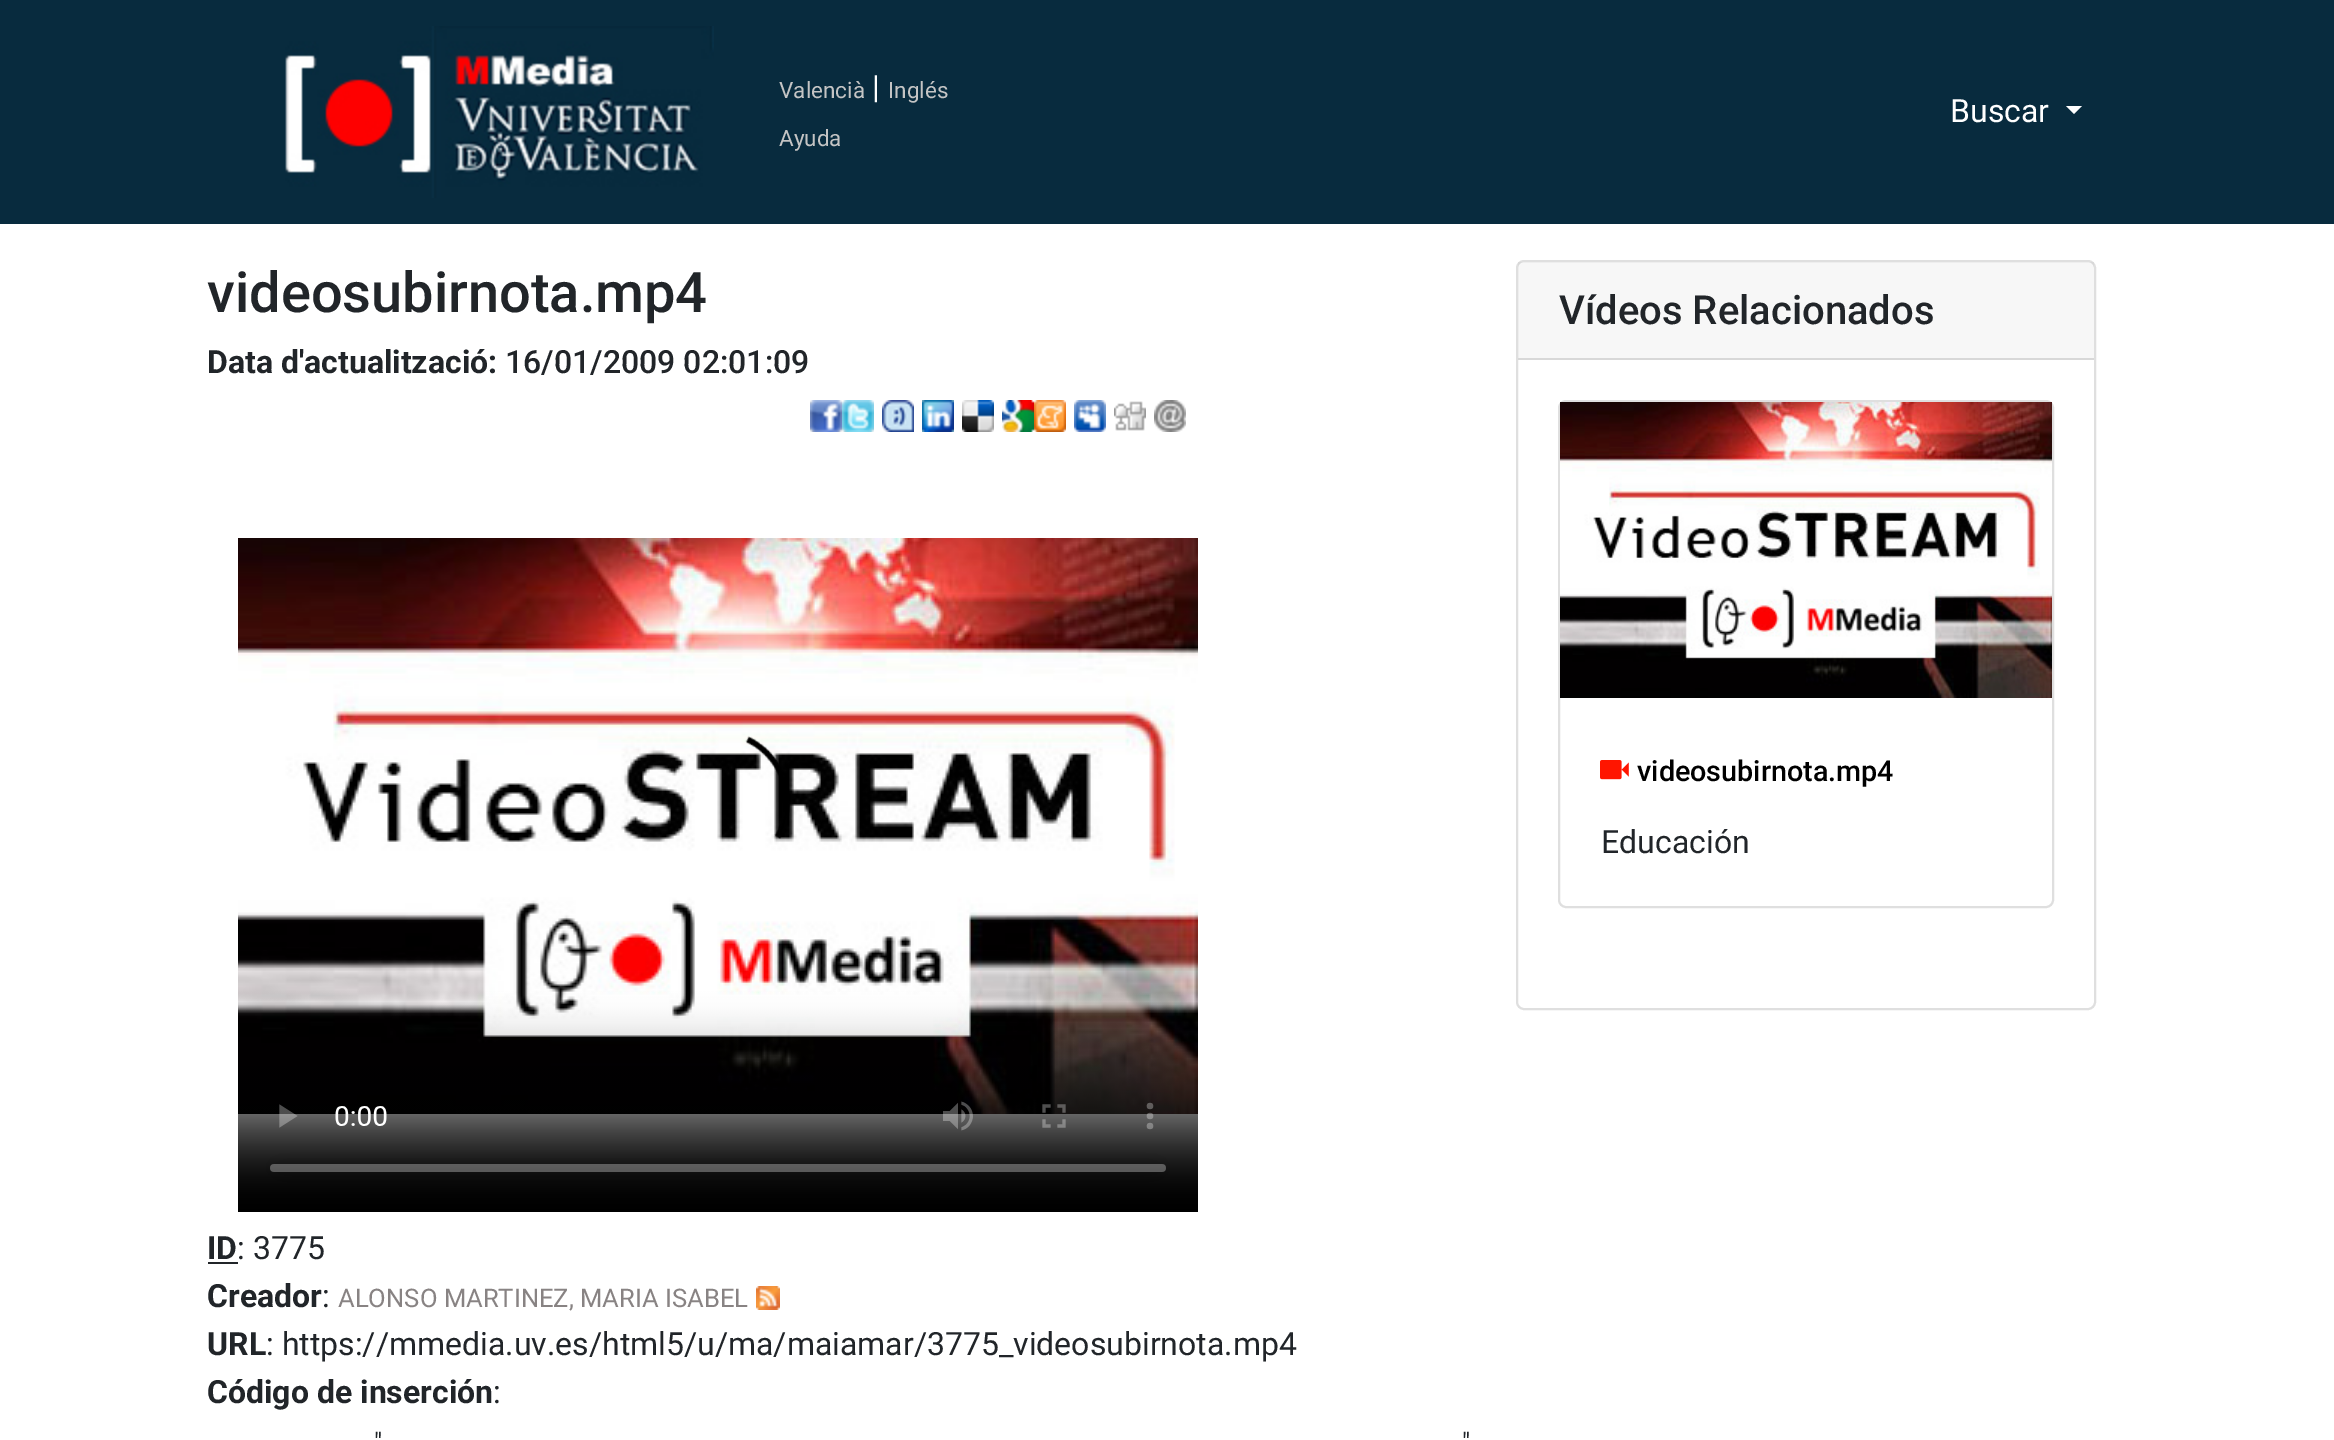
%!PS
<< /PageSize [2334 1440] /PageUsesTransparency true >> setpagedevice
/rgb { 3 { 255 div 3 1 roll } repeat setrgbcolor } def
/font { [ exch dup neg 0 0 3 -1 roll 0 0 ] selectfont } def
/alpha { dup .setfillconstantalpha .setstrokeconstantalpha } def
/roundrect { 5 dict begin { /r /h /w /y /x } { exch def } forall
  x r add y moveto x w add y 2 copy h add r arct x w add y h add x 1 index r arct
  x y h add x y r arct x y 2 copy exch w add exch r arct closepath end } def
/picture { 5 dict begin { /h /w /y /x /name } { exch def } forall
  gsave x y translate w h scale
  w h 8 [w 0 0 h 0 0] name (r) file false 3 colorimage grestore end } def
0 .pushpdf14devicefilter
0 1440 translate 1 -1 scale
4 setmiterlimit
255 255 255 rgb
0 0 2334 1440 rectfill
8 43 62 rgb
0 0 2334 224 rectfill
(img/1.rgb) 285 26 429 172 picture
255 255 255 rgb
2066 106 moveto 2082 106 lineto 2074 114 lineto closepath fill
(img/2.rgb) 810 400 32 32 picture
(img/3.rgb) 842 400 32 32 picture
(img/4.rgb) 882 400 32 32 picture
(img/5.rgb) 922 400 32 32 picture
(img/6.rgb) 962 400 32 32 picture
(img/7.rgb) 1002 400 32 32 picture
(img/8.rgb) 1034 400 32 32 picture
(img/9.rgb) 1074 400 32 32 picture
(img/10.rgb) 1114 401 32 30 picture
(img/11.rgb) 1154 400 32 32 picture
(img/12.rgb) 238 538 960 674 picture
33 37 41 rgb
208 1262 30 2 rectfill
(img/13.rgb) 756 1286 24 24 picture
223 223 223 rgb
2 setlinewidth
1517 261 578 748 7 roundrect stroke
0.03 alpha
0 0 0 rgb
1518 262 576 96 rectfill
1 alpha
216 216 216 rgb
1518 358 576 2 rectfill
223 223 223 rgb
1559 401 494 506 7 roundrect stroke
(img/14.rgb) 1560 402 492 296 picture
(img/15.rgb) 1600 760 29 20 picture
/Roboto-Regular 22.5 font
196 196 196 rgb
779 98 moveto (Valencià) show
/Roboto-Regular 32 font
255 255 255 rgb
872 98 moveto (|) show
/Roboto-Regular 22.5 font
196 196 196 rgb
888 98 moveto (Inglés) show
779 146 moveto (Ayuda) show
/Roboto-Regular 32 font
255 255 255 rgb
1950 122 moveto (Buscar) show
/Roboto-Medium 56 font
33 37 41 rgb
207 312 moveto (videosubirnota.mp4) show
/Roboto-Bold 32 font
207 373 moveto (Data d'actualització:) show
/Roboto-Medium 32 font
505 373 moveto (16/01/2009 02:01:09) show
/Roboto-Bold 32 font
207 1259 moveto (ID) show
/Roboto-Regular 32 font
237 1259 moveto (: 3775) show
/Roboto-Bold 32 font
207 1307 moveto (Creador) show
/Roboto-Regular 32 font
322 1307 moveto (:) show
/Roboto-Regular 25.6 font
136 131 131 rgb
338 1307 moveto (ALONSO MARTINEZ, MARIA ISABEL) show
/Roboto-Bold 32 font
33 37 41 rgb
207 1355 moveto (URL) show
/Roboto-Regular 32 font
266 1355 moveto (: https://mmedia.uv.es/html5/u/ma/maiamar/3775_videosubirnota.mp4) show
/Roboto-Bold 32 font
207 1403 moveto (Código de inserción) show
/Roboto-Regular 32 font
493 1403 moveto (:) show
/Roboto-Regular 25.6 font
374 1451 moveto (") show
1462 1451 moveto (") show
/Roboto-Medium 40 font
1559 324 moveto (Vídeos Relacionados) show
/Roboto-Medium 28.75 font
0 0 0 rgb
1637 781 moveto (videosubirnota.mp4) show
/Roboto-Regular 32 font
33 37 41 rgb
1601 853 moveto (Educación) show
.poppdf14devicefilter showpage
